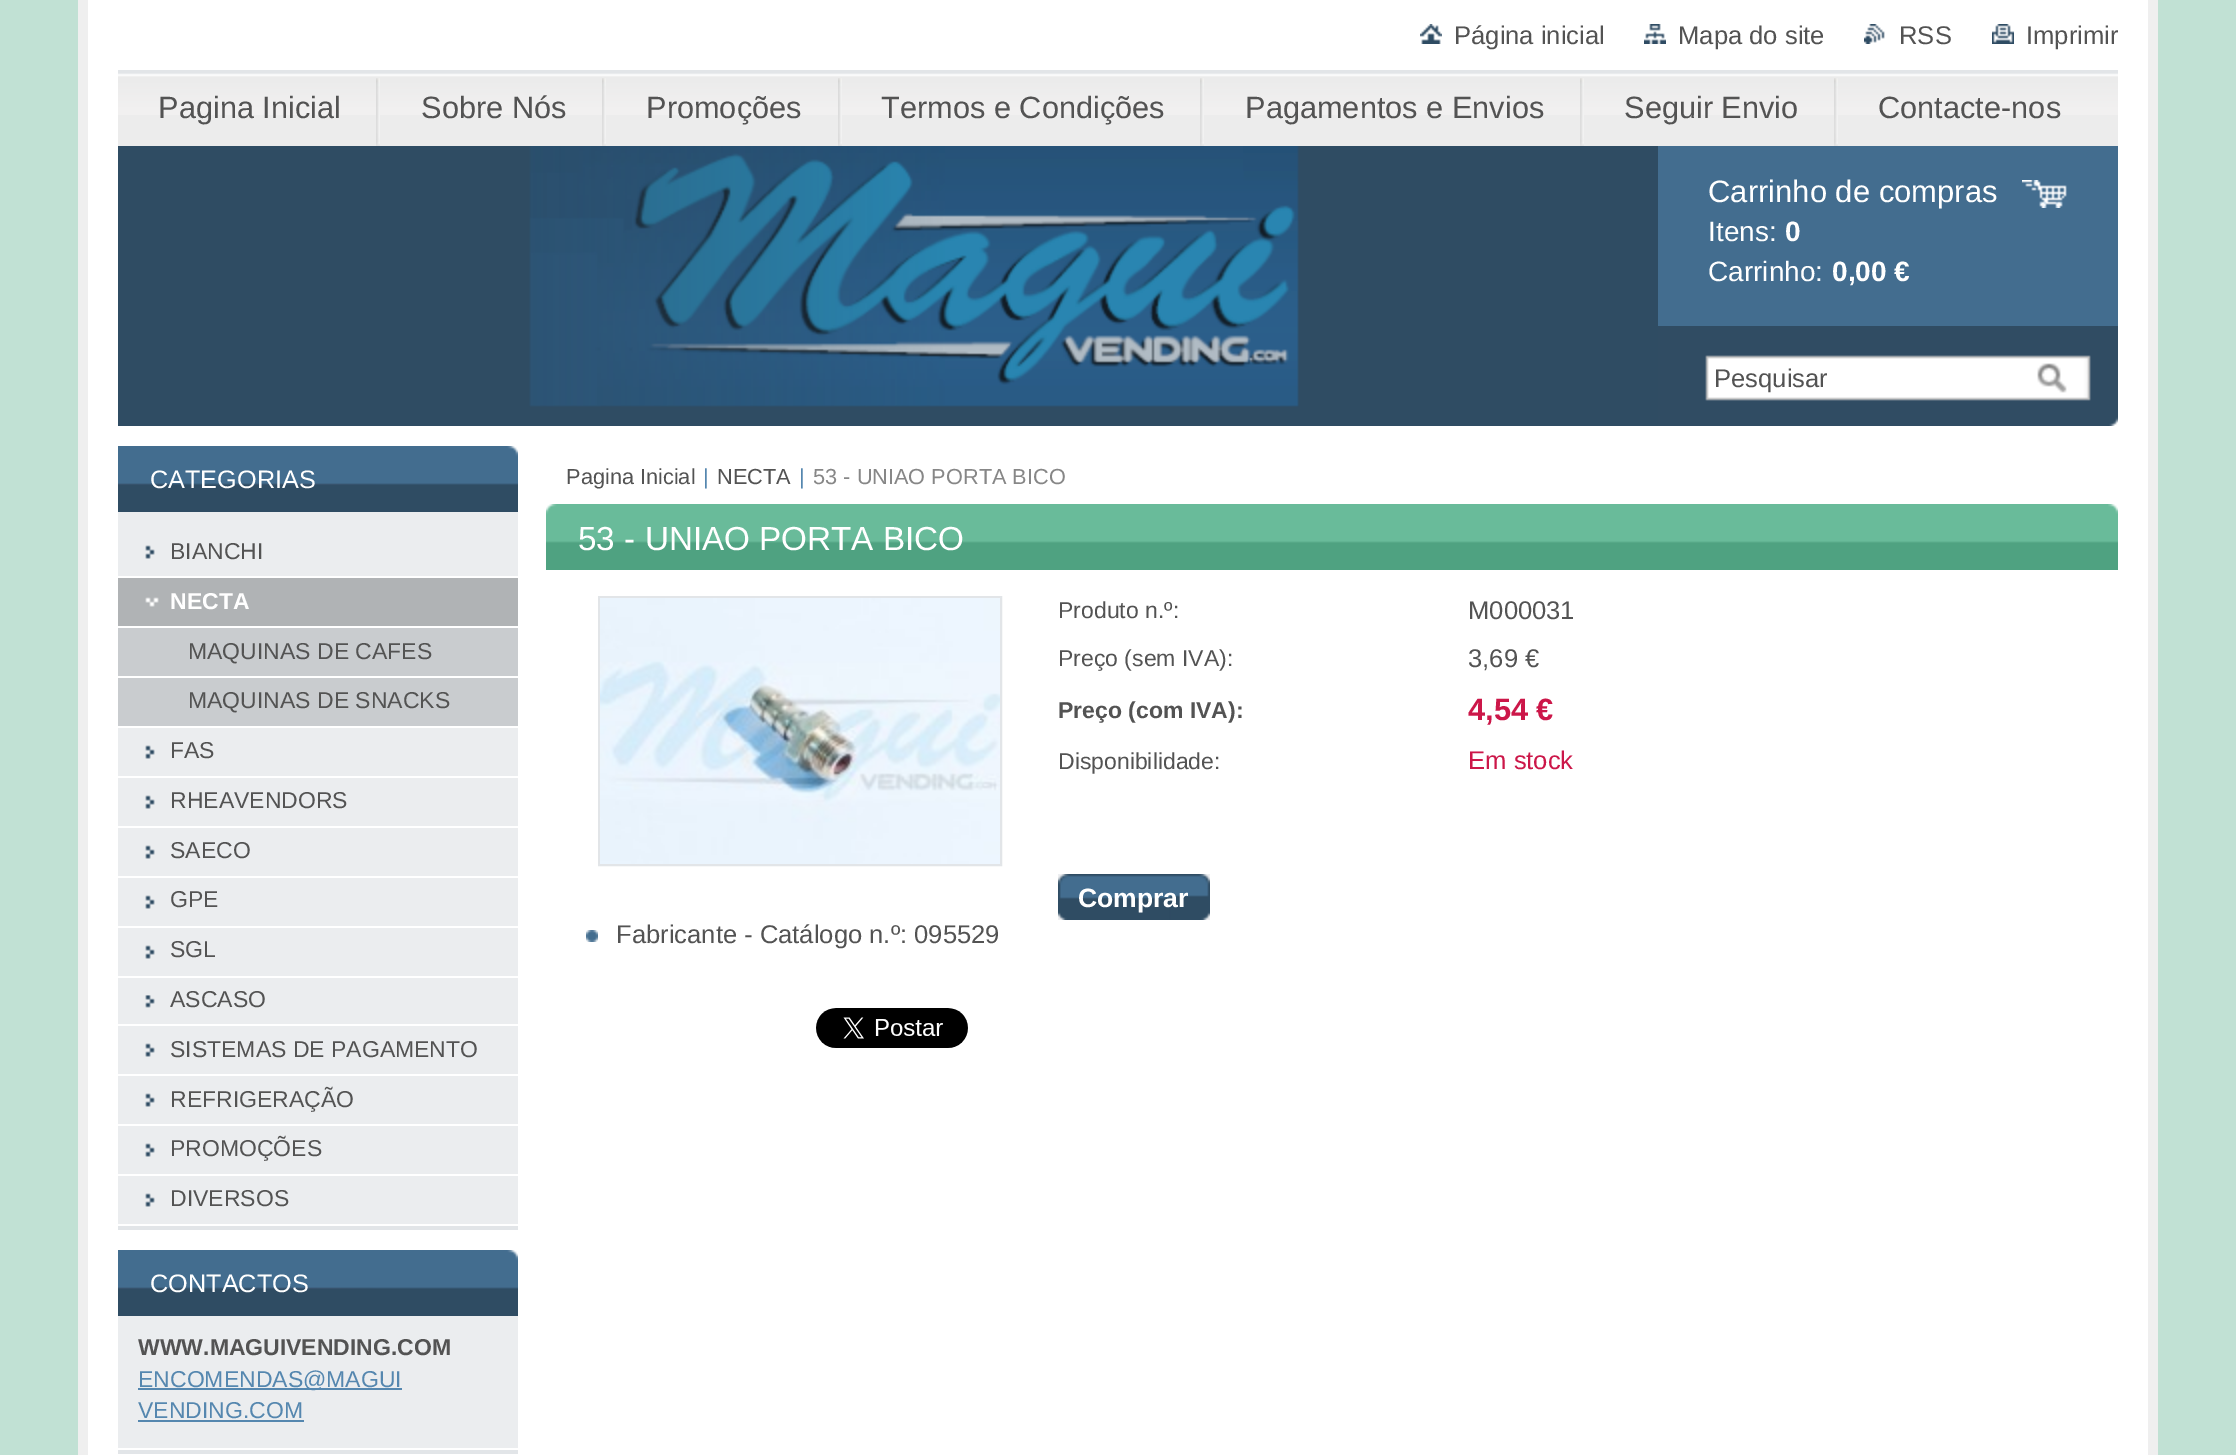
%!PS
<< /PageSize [2236 1455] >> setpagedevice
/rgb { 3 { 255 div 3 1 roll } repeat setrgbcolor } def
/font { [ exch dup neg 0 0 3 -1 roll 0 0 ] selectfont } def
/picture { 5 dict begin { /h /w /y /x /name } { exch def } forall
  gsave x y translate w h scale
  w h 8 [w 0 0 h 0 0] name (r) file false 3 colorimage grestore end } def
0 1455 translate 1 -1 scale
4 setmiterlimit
193 225 212 rgb
0 0 2236 1455 rectfill
[
  [88 0 2060 1455 255 255 255]
  [2148 0 10 1455 239 239 239]
  [78 0 10 1455 239 239 239]
] { aload pop rgb rectfill } forall
(img/1.rgb) 1420 24 22 20 picture
(img/2.rgb) 1644 24 22 20 picture
(img/3.rgb) 1864 24 21 20 picture
(img/4.rgb) 1992 24 22 20 picture
236 236 236 rgb
118 115 2000 31 rectfill
(img/5.rgb) 118 70 2000 45 picture
(img/6.rgb) 376 78 4 68 picture
(img/6.rgb) 602 78 4 68 picture
(img/6.rgb) 838 78 4 68 picture
(img/6.rgb) 1200 78 4 68 picture
(img/6.rgb) 1580 78 4 68 picture
(img/6.rgb) 1834 78 4 68 picture
47 76 99 rgb
118 146 1540 280 rectfill
(img/7.rgb) 529 146 770 261 picture
67 109 143 rgb
1658 146 460 180 rectfill
(img/8.rgb) 2022 180 45 28 picture
(img/9.rgb) 1658 326 460 100 picture
(img/10.rgb) 2037 363 36 30 picture
[
  [118 1226 400 4 226 229 232]
  [118 512 400 712 235 237 239]
  [118 485 400 27 47 76 99]
] { aload pop rgb rectfill } forall
(img/11.rgb) 118 446 400 39 picture
(img/12.rgb) 145 545 10 14 picture
255 255 255 rgb
118 576 400 2 rectfill
176 179 181 rgb
118 578 400 48 rectfill
(img/13.rgb) 145 597 14 10 picture
[
  [118 626 400 2 255 255 255]
  [118 628 400 98 201 204 207]
  [118 676 400 2 255 255 255]
  [118 726 400 2 255 255 255]
] { aload pop rgb rectfill } forall
(img/12.rgb) 145 745 10 14 picture
118 776 400 2 rectfill
(img/12.rgb) 145 795 10 14 picture
118 826 400 2 rectfill
(img/12.rgb) 145 845 10 14 picture
118 876 400 2 rectfill
(img/12.rgb) 145 895 10 14 picture
118 926 400 2 rectfill
(img/12.rgb) 145 945 10 14 picture
118 976 400 2 rectfill
(img/14.rgb) 145 995 10 13 picture
118 1024 400 2 rectfill
(img/12.rgb) 145 1043 10 14 picture
118 1074 400 2 rectfill
(img/12.rgb) 145 1093 10 14 picture
118 1124 400 2 rectfill
(img/12.rgb) 145 1143 10 14 picture
118 1174 400 2 rectfill
(img/12.rgb) 145 1193 10 14 picture
[
  [118 1450 400 4 226 229 232]
  [118 1316 400 132 235 237 239]
  [118 1289 400 27 47 76 99]
] { aload pop rgb rectfill } forall
(img/11.rgb) 118 1250 400 39 picture
[
  [138 1388 264 2 85 135 175]
  [138 1420 166 2 85 135 175]
  [546 543 1572 27 79 162 129]
] { aload pop rgb rectfill } forall
(img/15.rgb) 546 504 1572 39 picture
(img/16.rgb) 2108 504 10 10 picture
(img/17.rgb) 1058 874 141 25 picture
(img/18.rgb) 1199 874 11 23 picture
(img/19.rgb) 1058 897 113 23 picture
(img/20.rgb) 1169 895 41 25 picture
226 229 232 rgb
2 setlinewidth
599 597 402 268 rectstroke
(img/21.rgb) 600 598 400 266 picture
(img/22.rgb) 586 930 12 12 picture
(img/23.rgb) 816 1008 152 40 picture
/LiberationSans-Regular 25.6 font
83 83 83 rgb
[
  [(Página inicial) 1454 44]
  [(Mapa do site) 1678 44]
  [(RSS) 1899 44]
  [(Imprimir) 2026 44]
] { aload pop moveto show } forall
/LiberationSans-Regular 30.75 font
[
  [(Pagina Inicial) 158 118]
  [(Sobre Nós) 421 118]
  [(Promoções) 646 118]
  [(Termos e Condições) 881 118]
  [(Pagamentos e Envios) 1245 118]
  [(Seguir Envio) 1624 118]
  [(Contacte-nos) 1878 118]
] { aload pop moveto show } forall
/LiberationSans-Regular 31 font
255 255 255 rgb
1708 202 moveto (Carrinho de compras) show
/LiberationSans-Regular 28 font
1708 241 moveto (Itens:) show
/LiberationSans-Bold 28 font
1785 241 moveto (0) show
/LiberationSans-Regular 28 font
1708 281 moveto (Carrinho:) show
/LiberationSans-Bold 28 font
1832 281 moveto (0,00 €) show
/LiberationSans-Regular 25.6 font
83 83 83 rgb
1714 387 moveto (Pesquisar) show
/LiberationSans-Regular 25.25 font
255 255 255 rgb
150 488 moveto (CATEGORIAS) show
/LiberationSans-Regular 23 font
83 83 83 rgb
170 559 moveto (BIANCHI) show
/LiberationSans-Bold 23 font
255 255 255 rgb
170 609 moveto (NECTA) show
/LiberationSans-Regular 23 font
83 83 83 rgb
[
  [(MAQUINAS DE CAFES) 188 659]
  [(MAQUINAS DE SNACKS) 188 708]
  [(FAS) 170 758]
  [(RHEAVENDORS) 170 808]
  [(SAECO) 170 858]
  [(GPE) 170 907]
  [(SGL) 170 957]
  [(ASCASO) 170 1007]
  [(SISTEMAS DE PAGAMENTO) 170 1057]
  [(REFRIGERAÇÃO) 170 1107]
  [(PROMOÇÕES) 170 1156]
  [(DIVERSOS) 170 1206]
] { aload pop moveto show } forall
/LiberationSans-Regular 25.25 font
255 255 255 rgb
150 1292 moveto (CONTACTOS) show
/LiberationSans-Bold 23 font
83 83 83 rgb
138 1355 moveto (WWW.MAGUIVENDING.COM) show
/LiberationSans-Regular 23 font
85 135 175 rgb
138 1387 moveto (ENCOMENDAS@MAGUI) show
138 1418 moveto (VENDING.COM) show
/LiberationSans-Regular 21.75 font
83 83 83 rgb
566 484 moveto (Pagina Inicial) show
85 135 175 rgb
703 484 moveto (|) show
83 83 83 rgb
717 484 moveto (NECTA) show
85 135 175 rgb
799 484 moveto (|) show
135 135 135 rgb
813 484 moveto (53 - UNIAO PORTA BICO) show
/LiberationSans-Regular 33.25 font
255 255 255 rgb
578 550 moveto (53 - UNIAO PORTA BICO) show
/LiberationSans-Regular 23 font
83 83 83 rgb
1058 618 moveto (Produto n.º:) show
/LiberationSans-Regular 25.6 font
1468 619 moveto (M000031) show
/LiberationSans-Regular 23 font
1058 666 moveto (Preço \(sem IVA\):) show
/LiberationSans-Regular 25.6 font
1468 667 moveto (3,69 €) show
/LiberationSans-Bold 23 font
1058 718 moveto (Preço \(com IVA\):) show
/LiberationSans-Bold 30.75 font
204 23 73 rgb
1468 720 moveto (4,54 €) show
/LiberationSans-Regular 23 font
83 83 83 rgb
1058 769 moveto (Disponibilidade:) show
/LiberationSans-Regular 25.6 font
204 23 73 rgb
1468 769 moveto (Em stock) show
/LiberationSans-Bold 26.5 font
255 255 255 rgb
1078 907 moveto (Comprar) show
/LiberationSans-Regular 25.6 font
83 83 83 rgb
616 943 moveto (Fabricante - Catálogo n.º: 095529) show
showpage
